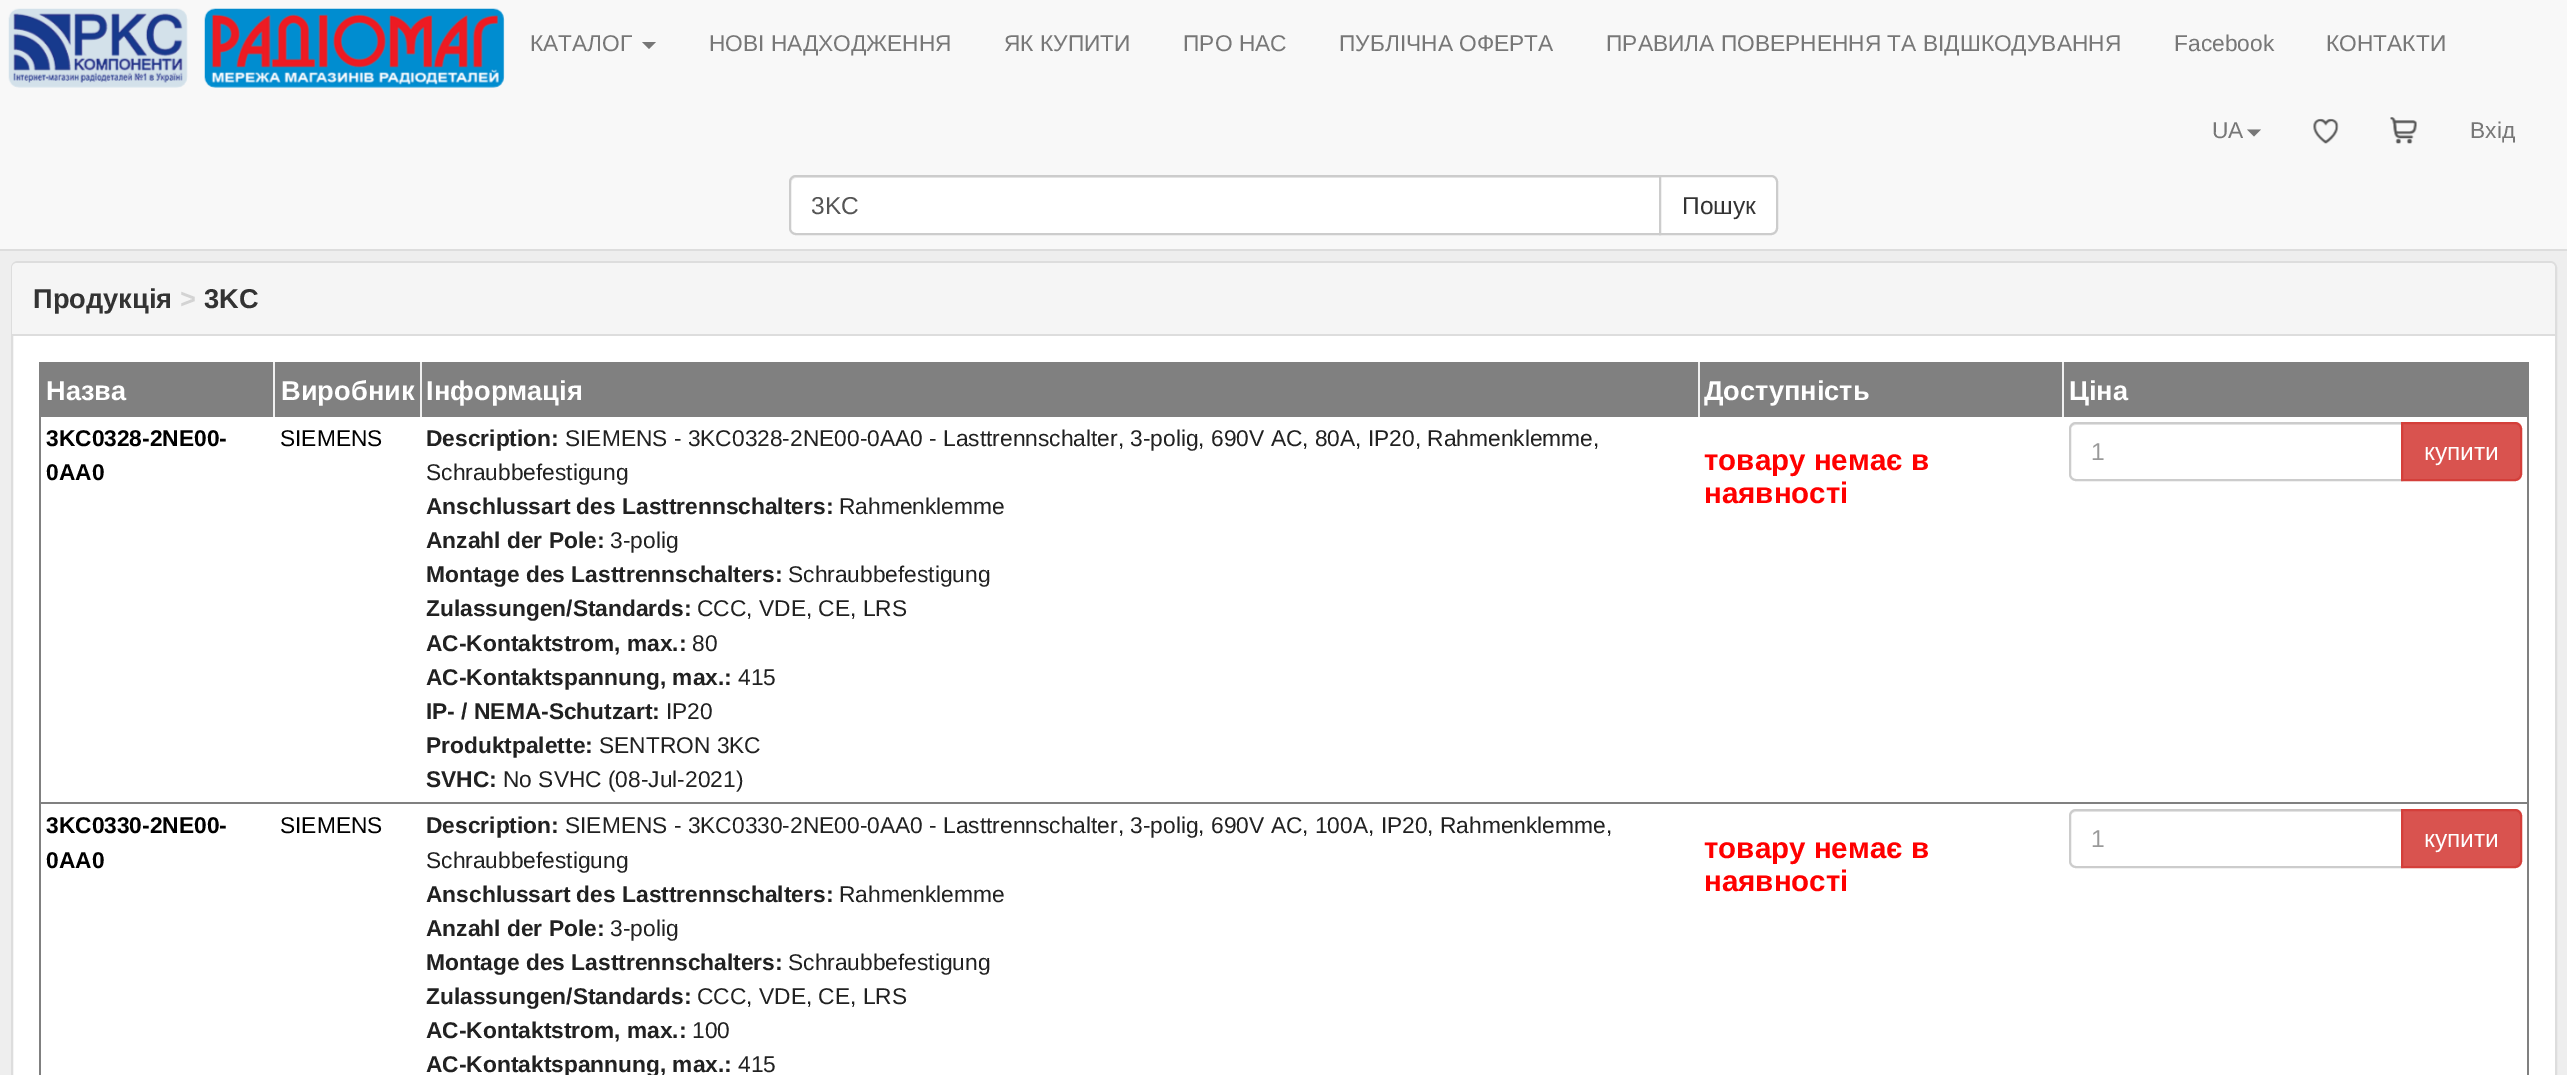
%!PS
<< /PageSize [2567 1075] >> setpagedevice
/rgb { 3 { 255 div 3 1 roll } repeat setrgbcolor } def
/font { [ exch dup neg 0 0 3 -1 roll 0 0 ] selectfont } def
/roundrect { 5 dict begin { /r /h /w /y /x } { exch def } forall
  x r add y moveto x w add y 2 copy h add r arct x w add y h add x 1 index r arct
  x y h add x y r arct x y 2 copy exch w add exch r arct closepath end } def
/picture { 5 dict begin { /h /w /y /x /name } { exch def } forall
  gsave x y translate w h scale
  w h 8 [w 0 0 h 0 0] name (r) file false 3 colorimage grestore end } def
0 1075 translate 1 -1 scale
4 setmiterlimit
238 238 238 rgb
0 0 2567 1075 rectfill
248 248 248 rgb
0 0 2567 249 rectfill
221 221 221 rgb
0 249 2567 2 rectfill
(img/1.rgb) 8 8 180 80 picture
(img/2.rgb) 204 8 301 80 picture
119 119 119 rgb
642 42 moveto 656 42 lineto 649 49 lineto closepath fill
2247 129.5 moveto 2261 129.5 lineto 2254 136.5 lineto closepath fill
(img/3.rgb) 2313 118 26 26 picture
(img/4.rgb) 2390 117 27 27 picture
255 255 255 rgb
796 175 moveto 1661 175 lineto 1661 235 lineto 796 235 lineto 792 235 789 232 789 228 curveto 789 182 lineto 789 178 792 175 796 175 curveto closepath fill
236 236 236 rgb
796 178 moveto 1659 178 lineto 1659 177 lineto 796 177 lineto 792 177 791 181 791 184 curveto 791 181 793 178 796 178 curveto closepath fill
204 204 204 rgb
2 setlinewidth
796 176 moveto 1660 176 lineto 1660 234 lineto 796 234 lineto 792.5 234 790 231.5 790 228 curveto 790 182 lineto 790 178.5 792.5 176 796 176 curveto closepath stroke
255 255 255 rgb
1660 176 moveto 1771 176 lineto 1774.5 176 1777 178.5 1777 182 curveto 1777 228 lineto 1777 231.5 1774.5 234 1771 234 curveto 1660 234 lineto closepath gsave fill grestore
204 204 204 rgb
stroke
255 255 255 rgb
12 262 2544 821 6 roundrect gsave fill grestore
221 221 221 rgb
stroke
245 245 245 rgb
17 263 moveto 2550 263 lineto 2553 263 2555 265 2555 268 curveto 2555 336 lineto 12 336 lineto 12 268 lineto 12 265 14 263 17 263 curveto closepath fill
[
  [12 334 2543 2 221 221 221]
  [39 362 2490 2 128 128 128]
  [2527 362 2 713 128 128 128]
  [39 362 2 713 128 128 128]
  [41 364 232 53 128 128 128]
  [273 362 2 55 240 240 240]
  [275 364 145 53 128 128 128]
  [420 362 2 55 240 240 240]
  [422 364 1276 53 128 128 128]
  [1698 362 2 55 240 240 240]
  [1700 364 362 53 128 128 128]
  [2062 362 2 55 240 240 240]
  [2064 364 463 53 128 128 128]
  [39 802 2490 2 128 128 128]
] { aload pop rgb rectfill } forall
236 236 236 rgb
2076 425 moveto 2401 425 lineto 2401 424 lineto 2075 424 lineto 2072 424 2070 427 2070 430 curveto 2070 428 2073 425 2076 425 curveto closepath fill
204 204 204 rgb
2076 423 moveto 2402 423 lineto 2402 480 lineto 2076 480 lineto 2072.5 480 2070 477.5 2070 474 curveto 2070 429 lineto 2070 425.5 2072.5 423 2076 423 curveto closepath stroke
217 83 79 rgb
2402 423 moveto 2515 423 lineto 2518.5 423 2521 425.5 2521 429 curveto 2521 474 lineto 2521 477.5 2518.5 480 2515 480 curveto 2402 480 lineto closepath gsave fill grestore
212 63 58 rgb
stroke
236 236 236 rgb
2076 812 moveto 2401 812 lineto 2401 810 lineto 2075 810 lineto 2072 810 2070 812 2070 815 curveto 2070 817 lineto 2070 814 2073 812 2076 812 curveto closepath fill
204 204 204 rgb
2076 810 moveto 2402 810 lineto 2402 867 lineto 2076 867 lineto 2072.5 867 2070 864.5 2070 861 curveto 2070 816 lineto 2070 812.5 2072.5 810 2076 810 curveto closepath stroke
217 83 79 rgb
2402 810 moveto 2515 810 lineto 2518.5 810 2521 812.5 2521 816 curveto 2521 861 lineto 2521 864.5 2518.5 867 2515 867 curveto 2402 867 lineto closepath gsave fill grestore
212 63 58 rgb
stroke
/LiberationSans-Regular 22.75 font
119 119 119 rgb
[
  [(КАТАЛОГ) 530 51]
  [(НОВІ НАДХОДЖЕННЯ) 709 51]
  [(ЯК КУПИТИ) 1004 51]
  [(ПРО НАС) 1183 51]
  [(ПУБЛІЧНА ОФЕРТА) 1339 51]
  [(ПРАВИЛА ПОВЕРНЕННЯ ТА ВІДШКОДУВАННЯ) 1606 51]
  [(Facebook) 2174 51]
  [(КОНТАКТИ) 2326 51]
  [(UA) 2212 138]
  [(Вхід) 2470 138]
] { aload pop moveto show } forall
/LiberationSans-Regular 24.5 font
85 85 85 rgb
811 214 moveto (3KC) show
51 51 51 rgb
1682 214 moveto (Пошук) show
/LiberationSans-Bold 27.25 font
33 308 moveto (Продукція) show
211 211 211 rgb
180 308 moveto (>) show
51 51 51 rgb
204 308 moveto (3KC) show
255 255 255 rgb
[
  [(Назва) 46 400]
  [(Виробник) 281 400]
  [(Інформація) 426 400]
  [(Доступність) 1704 400]
  [(Ціна) 2069 400]
] { aload pop moveto show } forall
/LiberationSans-Bold 22.75 font
0 0 0 rgb
46 446 moveto (3KC0328-2NE00-) show
46 480 moveto (0AA0) show
/LiberationSans-Regular 22.75 font
280 446 moveto (SIEMENS) show
/LiberationSans-Bold 22.75 font
33 33 33 rgb
426 446 moveto (Description:) show
/LiberationSans-Regular 22.75 font
565 446 moveto (SIEMENS - 3KC0328-2NE00-0AA0 - Lasttrennschalter, 3-polig, 690V AC, 80A, IP20, Rahmenklemme,) show
426 480 moveto (Schraubbefestigung) show
/LiberationSans-Bold 22.75 font
426 514 moveto (Anschlussart des Lasttrennschalters:) show
/LiberationSans-Regular 22.75 font
839 514 moveto (Rahmenklemme) show
/LiberationSans-Bold 22.75 font
426 548 moveto (Anzahl der Pole:) show
/LiberationSans-Regular 22.75 font
610 548 moveto (3-polig) show
/LiberationSans-Bold 22.75 font
426 582 moveto (Montage des Lasttrennschalters:) show
/LiberationSans-Regular 22.75 font
788 582 moveto (Schraubbefestigung) show
/LiberationSans-Bold 22.75 font
426 616 moveto (Zulassungen/Standards:) show
/LiberationSans-Regular 22.75 font
697 616 moveto (CCC, VDE, CE, LRS) show
/LiberationSans-Bold 22.75 font
426 651 moveto (AC-Kontaktstrom, max.:) show
/LiberationSans-Regular 22.75 font
692 651 moveto (80) show
/LiberationSans-Bold 22.75 font
426 685 moveto (AC-Kontaktspannung, max.:) show
/LiberationSans-Regular 22.75 font
738 685 moveto (415) show
/LiberationSans-Bold 22.75 font
426 719 moveto (IP- / NEMA-Schutzart:) show
/LiberationSans-Regular 22.75 font
666 719 moveto (IP20) show
/LiberationSans-Bold 22.75 font
426 753 moveto (Produktpalette:) show
/LiberationSans-Regular 22.75 font
599 753 moveto (SENTRON 3KC) show
/LiberationSans-Bold 22.75 font
426 787 moveto (SVHC:) show
/LiberationSans-Regular 22.75 font
503 787 moveto (No SVHC \(08-Jul-2021\)) show
/LiberationSans-Bold 29.5 font
255 0 0 rgb
1704 470 moveto (товару немає в) show
1704 503 moveto (наявності) show
/LiberationSans-Regular 24.5 font
153 153 153 rgb
2091 460 moveto (1) show
255 255 255 rgb
2424 460 moveto (купити) show
/LiberationSans-Bold 22.75 font
0 0 0 rgb
46 833 moveto (3KC0330-2NE00-) show
46 868 moveto (0AA0) show
/LiberationSans-Regular 22.75 font
280 833 moveto (SIEMENS) show
/LiberationSans-Bold 22.75 font
33 33 33 rgb
426 833 moveto (Description:) show
/LiberationSans-Regular 22.75 font
565 833 moveto (SIEMENS - 3KC0330-2NE00-0AA0 - Lasttrennschalter, 3-polig, 690V AC, 100A, IP20, Rahmenklemme,) show
426 868 moveto (Schraubbefestigung) show
/LiberationSans-Bold 22.75 font
426 902 moveto (Anschlussart des Lasttrennschalters:) show
/LiberationSans-Regular 22.75 font
839 902 moveto (Rahmenklemme) show
/LiberationSans-Bold 22.75 font
426 936 moveto (Anzahl der Pole:) show
/LiberationSans-Regular 22.75 font
610 936 moveto (3-polig) show
/LiberationSans-Bold 22.75 font
426 970 moveto (Montage des Lasttrennschalters:) show
/LiberationSans-Regular 22.75 font
788 970 moveto (Schraubbefestigung) show
/LiberationSans-Bold 22.75 font
426 1004 moveto (Zulassungen/Standards:) show
/LiberationSans-Regular 22.75 font
697 1004 moveto (CCC, VDE, CE, LRS) show
/LiberationSans-Bold 22.75 font
426 1038 moveto (AC-Kontaktstrom, max.:) show
/LiberationSans-Regular 22.75 font
692 1038 moveto (100) show
/LiberationSans-Bold 22.75 font
426 1072 moveto (AC-Kontaktspannung, max.:) show
/LiberationSans-Regular 22.75 font
738 1072 moveto (415) show
/LiberationSans-Bold 29.5 font
255 0 0 rgb
1704 858 moveto (товару немає в) show
1704 891 moveto (наявності) show
/LiberationSans-Regular 24.5 font
153 153 153 rgb
2091 847 moveto (1) show
255 255 255 rgb
2424 847 moveto (купити) show
showpage
